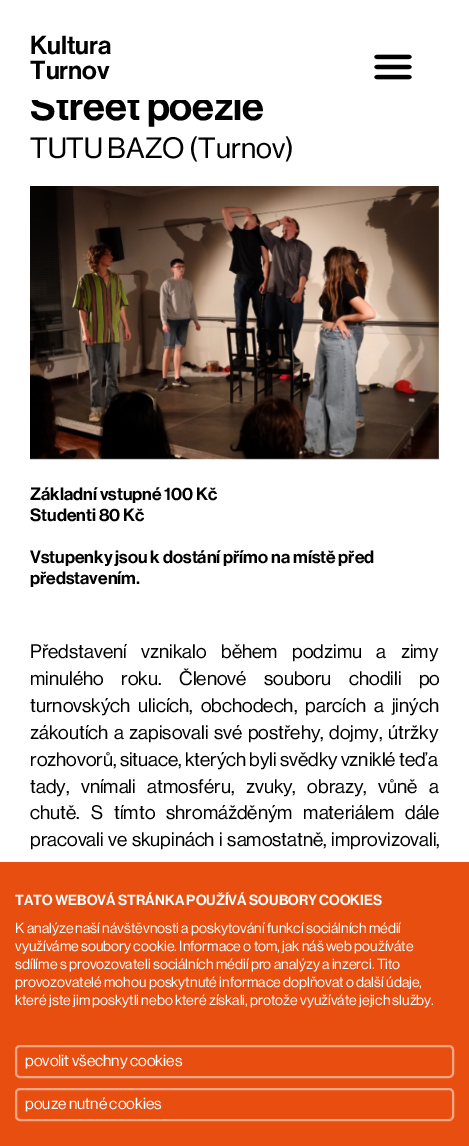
%!PS
<< /PageSize [469 1146] >> setpagedevice
/rgb { 3 { 255 div 3 1 roll } repeat setrgbcolor } def
/font { [ exch dup neg 0 0 3 -1 roll 0 0 ] selectfont } def
/roundrect { 5 dict begin { /r /h /w /y /x } { exch def } forall
  x r add y moveto x w add y 2 copy h add r arct x w add y h add x 1 index r arct
  x y h add x y r arct x y 2 copy exch w add exch r arct closepath end } def
/picture { 5 dict begin { /h /w /y /x /name } { exch def } forall
  gsave x y translate w h scale
  w h 8 [w 0 0 h 0 0] name (r) file false 3 colorimage grestore end } def
0 1146 translate 1 -1 scale
4 setmiterlimit
255 255 255 rgb
0 0 469 1146 rectfill
(img/1.rgb) 374 54 38 26 picture
(img/2.rgb) 30 186 409 274 picture
232 78 15 rgb
0 862 469 284 rectfill
244 167 135 rgb
2 setlinewidth
16 1046 437 31 4 roundrect stroke
16 1089 437 31 4 roundrect stroke
/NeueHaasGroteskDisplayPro-SemiBold 25.5 font
0 0 0 rgb
30 54 moveto (Kultura) show
30 79 moveto (Turnov) show
/NeueHaasGroteskDisplayPro-SemiBold 40 font
30 120 moveto (Street poezie) show
255 255 255 rgb
31 90 227 10 rectfill
/NeueHaasGroteskDisplayPro-Regular 28.75 font
0 0 0 rgb
30 158 moveto (TUTU BAZO \(Turnov\)) show
/NeueHaasGroteskDisplayPro-SemiBold 17.6 font
[
  [(Základní vstupné 100 Kč) 30 500]
  [(Studenti 80 Kč) 30 521]
  [(Vstupenky jsou k dostání přímo na místě před) 30 563]
  [(představením.) 30 584]
] { aload pop moveto show } forall
/NeueHaasGroteskDisplayPro-Regular 19.2 font
30 658 moveto 11.5 0 32 (Představení vznikalo během podzimu a zimy) widthshow
30 685 moveto 14.5 0 32 (minulého roku. Členové souboru chodili po) widthshow
30 712 moveto 5 0 32 (turnovských ulicích, obchodech, parcích a jiných) widthshow
30 739 moveto 2.5 0 32 (zákoutích a zapisovali své postřehy, dojmy, útržky) widthshow
30 766 moveto (rozhovorů, situace, kterých byli svědky vzniklé teď a) show
30 793 moveto 8.5 0 32 (tady, vnímali atmosféru, zvuky, obrazy, vůně a) widthshow
30 819 moveto 8 0 32 (chutě. S tímto shromážděným materiálem dále) widthshow
30 846 moveto 1.5 0 32 (pracovali ve skupinách i samostatně, improvizovali,) widthshow
/NeueHaasGroteskDisplayPro-SemiBold 14.4 font
255 255 255 rgb
15 905 moveto (TATO WEBOVÁ STRÁNKA POUŽÍVÁ SOUBORY COOKIES) show
/NeueHaasGroteskDisplayPro-Regular 14.4 font
[
  [(K analýze naší návštěvnosti a poskytování funkcí sociálních médií) 15 933]
  [(využíváme soubory cookie. Informace o tom, jak náš web používáte) 15 951]
  [(sdílíme s provozovateli sociálních médií pro analýzy a inzerci. Tito) 15 969]
  [(provozovatelé mohou poskytnuté informace doplňovat o další údaje,) 15 987]
  [(které jste jim poskytli nebo které získali, protože využíváte jejich služby.) 15 1005]
] { aload pop moveto show } forall
/NeueHaasGroteskDisplayPro-Regular 15.75 font
25 1066 moveto (povolit všechny cookies) show
25 1109 moveto (pouze nutné cookies) show
showpage
